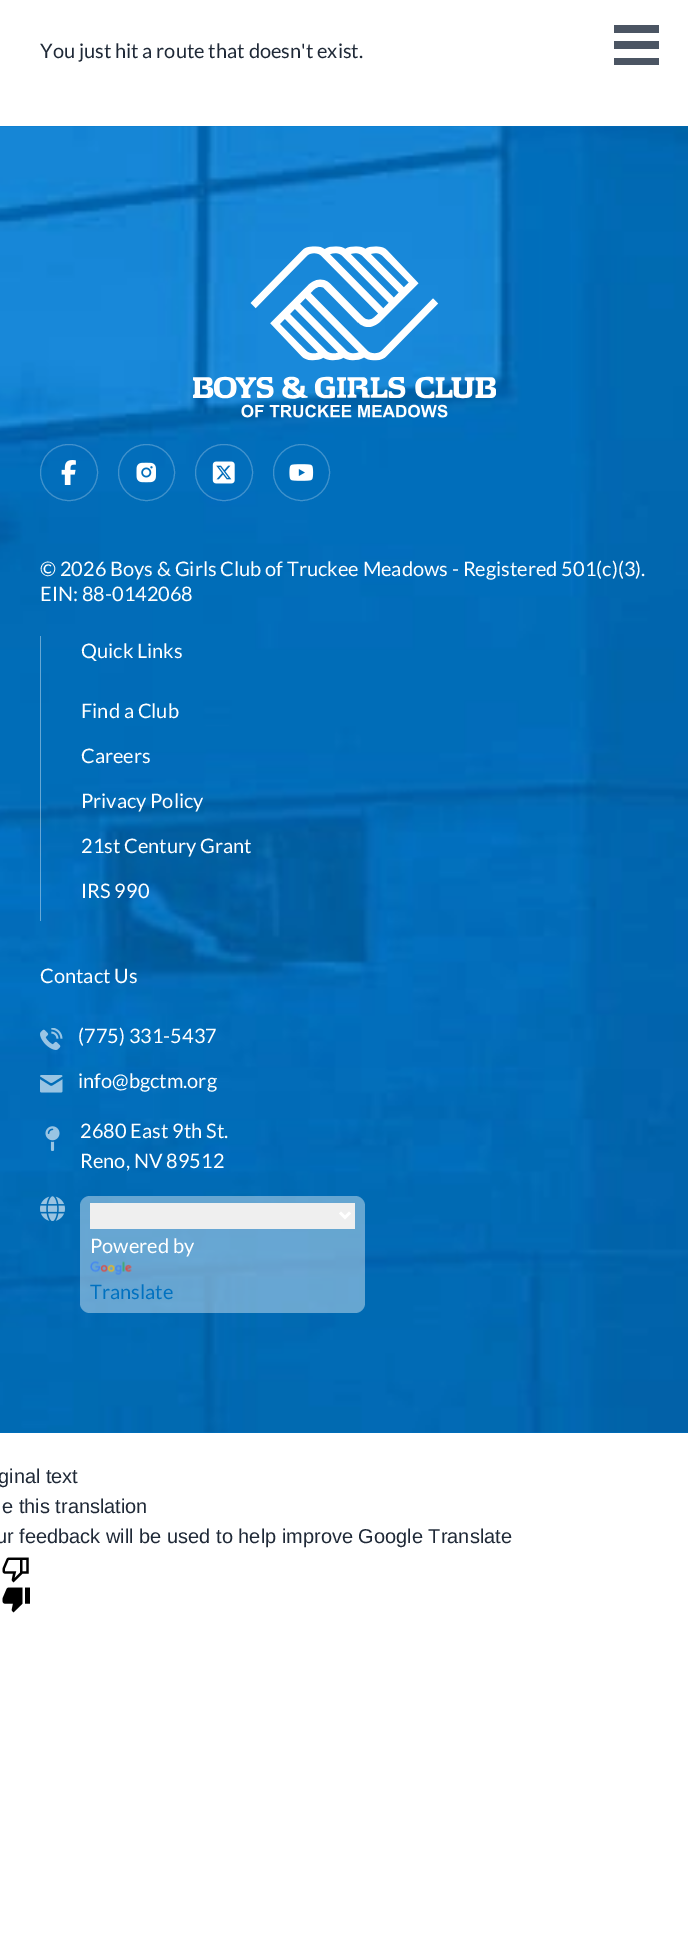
%!PS
<< /PageSize [688 1955] /PageUsesTransparency true >> setpagedevice
/rgb { 3 { 255 div 3 1 roll } repeat setrgbcolor } def
/font { [ exch dup neg 0 0 3 -1 roll 0 0 ] selectfont } def
/alpha { dup .setfillconstantalpha .setstrokeconstantalpha } def
/circle { newpath 0 360 arc closepath } def
/roundrect { 5 dict begin { /r /h /w /y /x } { exch def } forall
  x r add y moveto x w add y 2 copy h add r arct x w add y h add x 1 index r arct
  x y h add x y r arct x y 2 copy exch w add exch r arct closepath end } def
/picture { 5 dict begin { /h /w /y /x /name } { exch def } forall
  gsave x y translate w h scale
  w h 8 [w 0 0 h 0 0] name (r) file false 3 colorimage grestore end } def
0 .pushpdf14devicefilter
0 1955 translate 1 -1 scale
4 setmiterlimit
255 255 255 rgb
0 0 688 1955 rectfill
[
  [614 25 45 8 75 85 99]
  [614 41 45 8 75 85 99]
  [614 58 45 7 75 85 99]
  [0 126 688 1307 0 113 192]
] { aload pop rgb rectfill } forall
(img/1.rgb) 0 126 688 1307 picture
(img/2.rgb) 193 246 303 172 picture
0.25 alpha
255 255 255 rgb
40.5 444.5 57 56 28 roundrect stroke
1 alpha
(img/3.rgb) 61 460 15 25 picture
0.25 alpha
146.5 472.5 28 circle stroke
1 alpha
(img/4.rgb) 136 462 20 21 picture
0.25 alpha
195.5 444.5 57 56 28 roundrect stroke
1 alpha
(img/5.rgb) 212 461 23 23 picture
64 146 204 rgb
301.5 472.5 28 circle stroke
(img/6.rgb) 289 464 25 17 picture
0.4 alpha
255 255 255 rgb
40 636 1 285 rectfill
1 alpha
(img/7.rgb) 40 1028 23 22 picture
(img/8.rgb) 40 1075 23 18 picture
(img/9.rgb) 45 1126 15 25 picture
(img/10.rgb) 40 1196 25 25 picture
0.4 alpha
80 1196 285 117 10 roundrect fill
1 alpha
239 239 239 rgb
90 1203 265 26 rectfill
255 255 255 rgb
2.5 setlinewidth
340 1212.5 moveto 345 1217.5 lineto 350 1212.5 lineto stroke
(img/11.rgb) 90 1261 42 14 picture
(img/12.rgb) 2 1557 27 26 picture
(img/13.rgb) 2 1587 28 26 picture
/Lato-Regular 20 font
31 41 55 rgb
40 58 moveto (You just hit a route that doesn't exist.) show
255 255 255 rgb
[
  [(© 2026 Boys & Girls Club of Truckee Meadows - Registered 501\(c\)\(3\).) 40 576]
  [(EIN: 88-0142068) 40 601]
  [(Quick Links) 81 658]
  [(Find a Club) 81 718]
  [(Careers) 81 763]
  [(Privacy Policy) 81 808]
  [(21st Century Grant) 81 853]
  [(IRS 990) 81 898]
  [(Contact Us) 40 983]
  [(\(775\) 331-5437) 78 1043]
  [(info@bgctm.org) 78 1088]
  [(2680 East 9th St.) 80 1138]
  [(Reno, NV 89512) 80 1168]
  [(Powered by) 90 1253]
] { aload pop moveto show } forall
0 113 192 rgb
90 1299 moveto (Translate) show
/LiberationSans-Regular 20 font
31 41 55 rgb
[
  [(ginal text) -2 1483]
  [(e this translation) 2 1513]
  [(ur feedback will be used to help improve Google Translate) -4 1543]
] { aload pop moveto show } forall
.poppdf14devicefilter showpage
